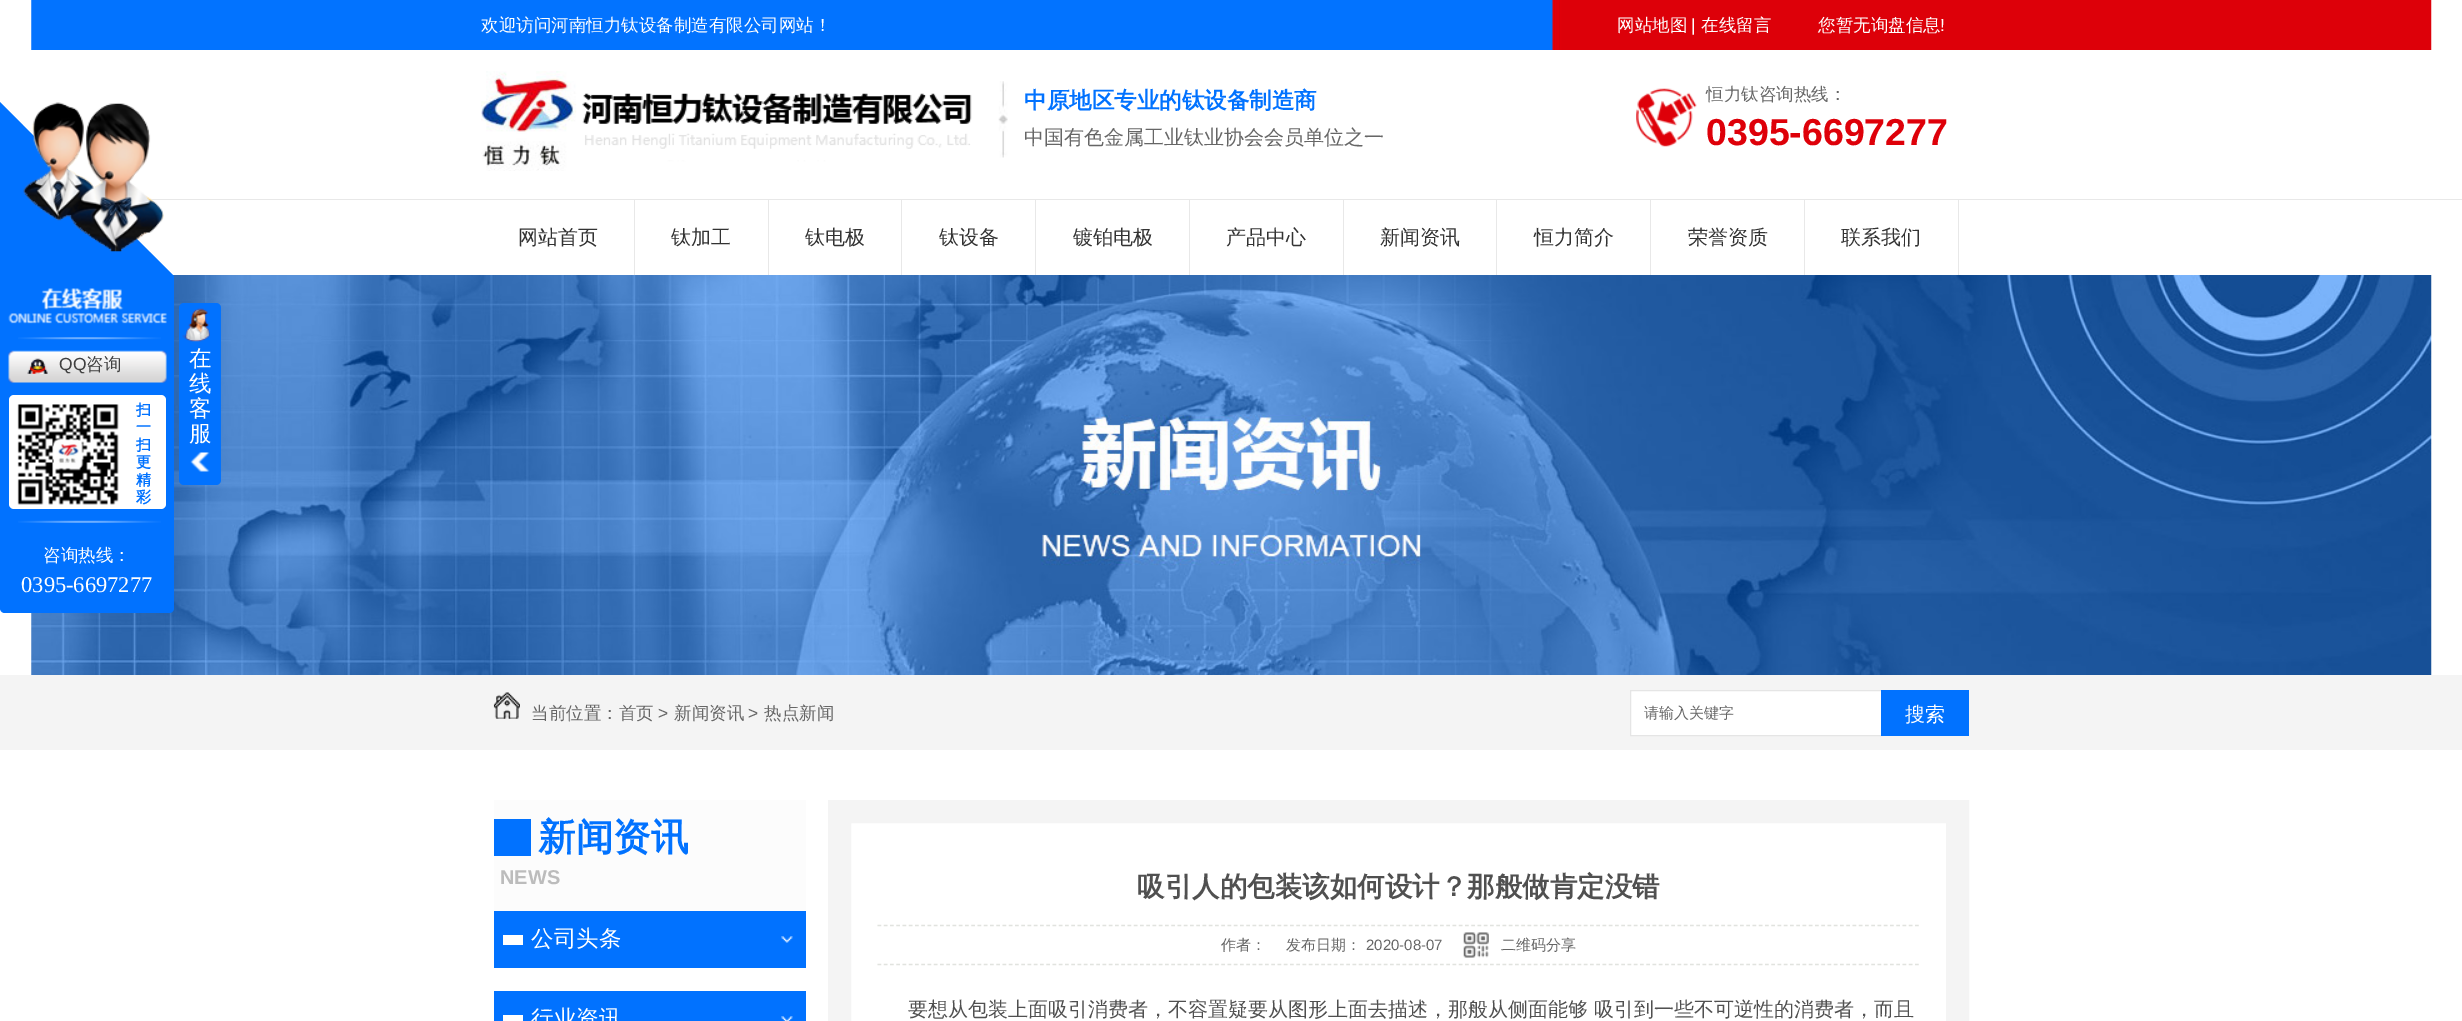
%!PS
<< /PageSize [2462 1021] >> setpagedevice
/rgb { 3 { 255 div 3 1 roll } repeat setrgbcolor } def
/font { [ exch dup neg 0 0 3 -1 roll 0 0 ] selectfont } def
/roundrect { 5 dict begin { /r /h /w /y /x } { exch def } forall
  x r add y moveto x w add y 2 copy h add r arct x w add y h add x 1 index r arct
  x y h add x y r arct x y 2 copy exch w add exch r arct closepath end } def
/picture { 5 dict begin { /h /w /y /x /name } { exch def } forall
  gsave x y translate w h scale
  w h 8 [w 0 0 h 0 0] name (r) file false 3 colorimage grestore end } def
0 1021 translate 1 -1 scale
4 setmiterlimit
255 255 255 rgb
0 0 2462 1021 rectfill
(img/1.rgb) 31 0 2401 50 picture
(img/2.rgb) 481 71 491 100 picture
(img/3.rgb) 998 81 10 77 picture
(img/4.rgb) 1636 88 61 59 picture
[
  [149 199 2313 1 232 232 232]
  [634 200 1 75 232 232 232]
  [768 200 1 75 232 232 232]
  [901 200 1 75 232 232 232]
  [1035 200 1 75 232 232 232]
  [1189 200 1 75 232 232 232]
  [1343 200 1 75 232 232 232]
  [1496 200 1 75 232 232 232]
  [1650 200 1 75 232 232 232]
  [1804 200 1 75 232 232 232]
  [1958 200 1 75 232 232 232]
] { aload pop rgb rectfill } forall
(img/5.rgb) 31 275 2401 400 picture
1 114 255 rgb
0 102 moveto 174 276 lineto 0 276 lineto closepath fill
(img/6.rgb) 23 102 141 150 picture
0 276 moveto 174 276 lineto 174 608 lineto 174 611 172 613 169 613 curveto 5 613 lineto 2 613 0 611 0 608 curveto closepath fill
(img/7.rgb) 8 288 159 36 picture
(img/8.rgb) 18 337 143 3 picture
(img/9.rgb) 8 350 159 33 picture
(img/10.rgb) 27 358 21 16 picture
255 255 255 rgb
9 395 157 114 5 roundrect fill
(img/11.rgb) 17 404 102 101 picture
(img/12.rgb) 18 520 143 3 picture
1 114 255 rgb
179 303 42 182 5 roundrect fill
(img/13.rgb) 190 452 20 20 picture
(img/14.rgb) 182 308 28 34 picture
244 244 244 rgb
0 675 2462 75 rectfill
(img/15.rgb) 493 692 27 27 picture
255 255 255 rgb
1631 691 250 44 rectfill
229 229 229 rgb
1630.5 690.5 252 45 rectstroke
[
  [1881 690 88 46 1 114 255]
  [494 800 312 111 252 252 252]
  [494 819 37 37 1 114 255]
  [494 911 312 57 1 114 255]
] { aload pop rgb rectfill } forall
(img/16.rgb) 781 936 12 7 picture
255 255 255 rgb
503 935 20 10 rectfill
1 114 255 rgb
494 991 312 30 rectfill
(img/17.rgb) 781 1016 12 5 picture
255 255 255 rgb
503 1015 20 6 rectfill
244 244 244 rgb
23 setlinewidth
839.5 811.5 1118 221 rectstroke
225 227 223 rgb
1.2 setlinewidth
[3.75 2.5] 0 setdash
877.5 925.5 moveto 1919 925.5 lineto stroke
877.5 964.5 moveto 1919 964.5 lineto stroke
(img/18.rgb) 1463 932 26 26 picture
/WenQuanYiZenHei-Medium 17.5 font
255 255 255 rgb
481 31 moveto (欢迎访问河南恒力钛设备制造有限公司网站！) show
1617 31 moveto (网站地图) show
/LiberationSans-Regular 17.5 font
1691 31 moveto (|) show
/WenQuanYiZenHei-Medium 17.5 font
1701 31 moveto (在线留言) show
1818 31 moveto (您暂无询盘信息) show
/LiberationSans-Regular 17.5 font
1940 31 moveto (!) show
/WenQuanYiZenHei-Bold 22.5 font
1 114 255 rgb
1024 108 moveto (中原地区专业的钛设备制造商) show
/WenQuanYiZenHei-Medium 20 font
102 102 102 rgb
1024 144 moveto (中国有色金属工业钛业协会会员单位之一) show
/WenQuanYiZenHei-Medium 17.5 font
1706 100 moveto (恒力钛咨询热线：) show
/LiberationSans-Bold 37.5 font
222 0 9 rgb
1706 145 moveto (0395-6697277) show
/WenQuanYiZenHei-Medium 20 font
51 51 51 rgb
[
  [(网站首页) 518 244]
  [(钛加工) 671 244]
  [(钛电极) 805 244]
  [(钛设备) 939 244]
  [(镀铂电极) 1073 244]
  [(产品中心) 1226 244]
  [(新闻资讯) 1380 244]
  [(恒力简介) 1534 244]
  [(荣誉资质) 1688 244]
  [(联系我们) 1841 244]
] { aload pop moveto show } forall
/LiberationSans-Regular 17.5 font
64 64 64 rgb
59 370 moveto (QQ) show
/WenQuanYiZenHei-Medium 17.5 font
86 370 moveto (咨询) show
/WenQuanYiZenHei-Bold 15 font
1 114 255 rgb
[
  [(扫) 136 415]
  [(一) 136 432]
  [(扫) 136 450]
  [(更) 136 467]
  [(精) 136 485]
  [(彩) 136 502]
] { aload pop moveto show } forall
/WenQuanYiZenHei-Medium 17.5 font
255 255 255 rgb
43 561 moveto (咨询热线：) show
/LiberationSerif-Regular 22.5 font
21 592 moveto (0395-6697277) show
/WenQuanYiZenHei-Medium 22.5 font
[
  [(在) 189 366]
  [(线) 189 391]
  [(客) 189 416]
  [(服) 189 441]
] { aload pop moveto show } forall
/WenQuanYiZenHei-Medium 17.5 font
102 102 102 rgb
531 719 moveto (当前位置：首页) show
/LiberationSans-Regular 17.5 font
658 719 moveto (>) show
/WenQuanYiZenHei-Medium 17.5 font
674 719 moveto (新闻资讯) show
/LiberationSans-Regular 17.5 font
748 719 moveto (>) show
/WenQuanYiZenHei-Medium 17.5 font
764 719 moveto (热点新闻) show
/WenQuanYiZenHei-Medium 15 font
1644 718 moveto (请输入关键字) show
/WenQuanYiZenHei-Medium 20 font
255 255 255 rgb
1905 721 moveto (搜索) show
/WenQuanYiZenHei-Bold 37.5 font
1 114 255 rgb
538 850 moveto (新闻资讯) show
/LiberationSans-Bold 20 font
188 188 188 rgb
500 884 moveto (NEWS) show
/WenQuanYiZenHei-Medium 22.5 font
255 255 255 rgb
531 946 moveto (公司头条) show
531 1026 moveto (行业资讯) show
/WenQuanYiZenHei-Bold 27.5 font
80 80 80 rgb
1137 896 moveto (吸引人的包装该如何设计？那般做肯定没错) show
/WenQuanYiZenHei-Medium 15 font
102 102 102 rgb
1221 950 moveto (作者：) show
1286 950 moveto (发布日期：) show
/LiberationSans-Regular 15 font
1366 950 moveto (2020-08-07) show
/WenQuanYiZenHei-Medium 15 font
1501 950 moveto (二维码分享) show
/WenQuanYiZenHei-Medium 20 font
80 80 80 rgb
908 1016 moveto (要想从包装上面吸引消费者，不容置疑要从图形上面去描述，那般从侧面能够 吸引到一些不可逆性的消费者，而且) show
showpage
